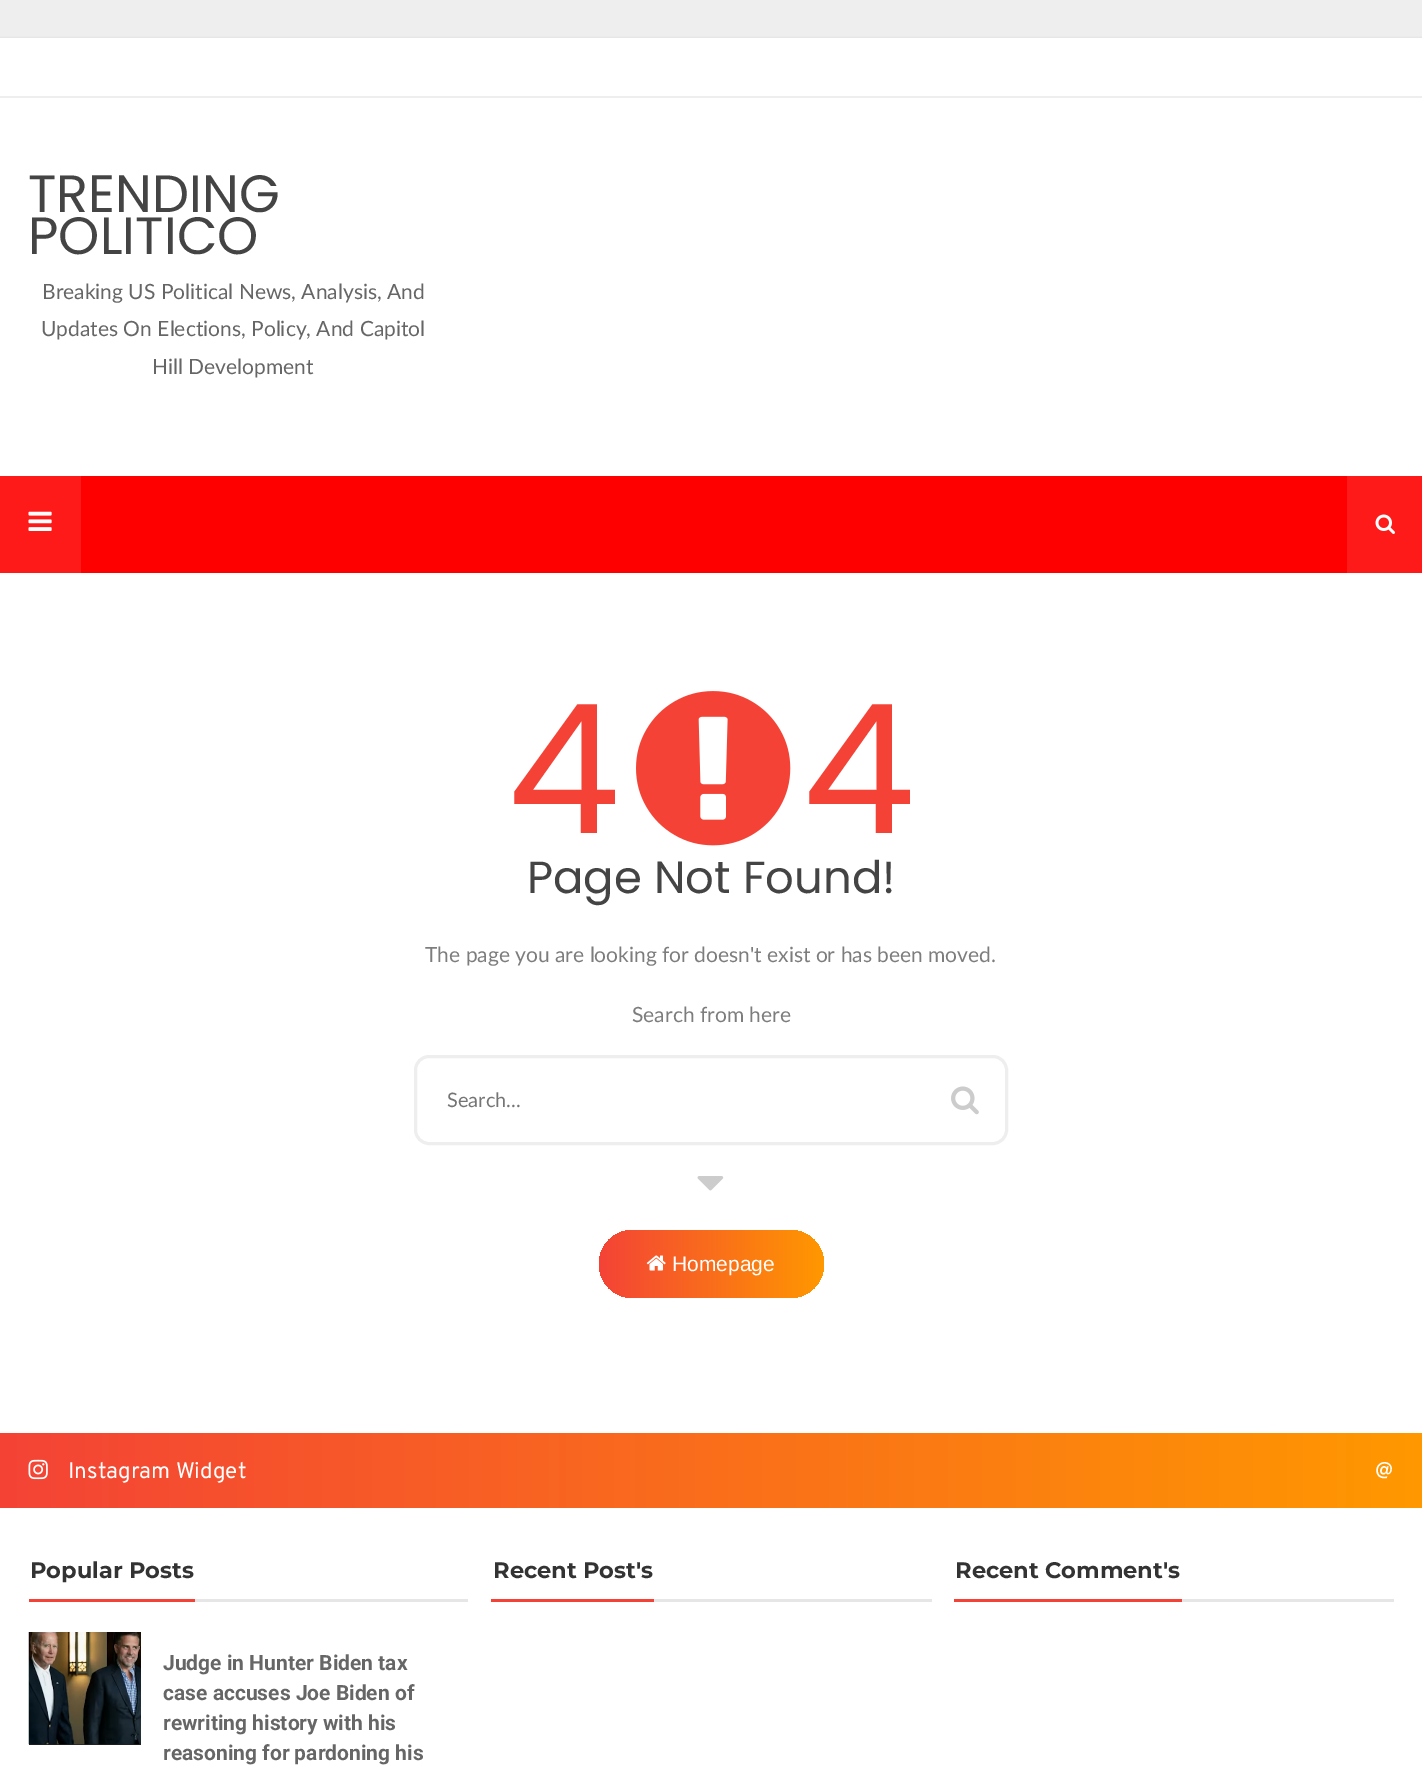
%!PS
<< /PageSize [1422 1782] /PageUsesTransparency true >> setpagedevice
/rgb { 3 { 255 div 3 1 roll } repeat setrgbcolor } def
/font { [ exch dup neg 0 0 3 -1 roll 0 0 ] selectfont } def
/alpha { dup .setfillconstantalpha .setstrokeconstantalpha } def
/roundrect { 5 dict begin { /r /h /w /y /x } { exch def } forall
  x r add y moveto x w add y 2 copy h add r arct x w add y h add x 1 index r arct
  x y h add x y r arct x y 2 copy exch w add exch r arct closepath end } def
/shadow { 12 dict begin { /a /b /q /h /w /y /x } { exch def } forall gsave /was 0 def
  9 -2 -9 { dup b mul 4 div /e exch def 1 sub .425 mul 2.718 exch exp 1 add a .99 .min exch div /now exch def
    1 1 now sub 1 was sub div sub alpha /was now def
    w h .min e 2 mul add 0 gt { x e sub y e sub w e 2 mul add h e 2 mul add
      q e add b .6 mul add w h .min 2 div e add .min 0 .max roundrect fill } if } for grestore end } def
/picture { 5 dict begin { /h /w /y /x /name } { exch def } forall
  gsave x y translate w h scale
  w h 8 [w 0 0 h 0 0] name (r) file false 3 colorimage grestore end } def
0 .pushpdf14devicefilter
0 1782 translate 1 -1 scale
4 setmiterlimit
238 238 238 rgb
0 0 1422 1782 rectfill
170 170 170 rgb
0 38 1422 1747 0 1 0.36 shadow
[
  [0 38 1422 438 255 255 255]
  [0 96 1422 2 238 238 238]
  [81 476 1266 97 255 0 0]
  [0 476 81 97 255 26 26]
] { aload pop rgb rectfill } forall
(img/1.rgb) 28 511 24 20 picture
1347 476 75 97 rectfill
(img/2.rgb) 1375 514 20 20 picture
255 255 255 rgb
0 573 1422 1209 rectfill
(img/3.rgb) 636 691 155 155 picture
238 238 238 rgb
3 setlinewidth
415.5 1056.5 591 87 13.5 roundrect stroke
(img/4.rgb) 951 1086 28 29 picture
(img/5.rgb) 697 1176 27 15 picture
gsave 599 1230 225 68 34 roundrect clip newpath
<< /ShadingType 2 /ColorSpace /DeviceRGB /Coords [824 1264 599 1264] /Extend [true true] /Function << /FunctionType 2 /Domain [0 1] /C0 [1 0.596 0] /C1 [0.957 0.263 0.212] /N 1 >> >> shfill grestore
(img/6.rgb) 646 1255 20 16 picture
gsave 0 1433 moveto 1422 1433 lineto 1422 1508 lineto 0 1508 lineto closepath clip newpath
<< /ShadingType 2 /ColorSpace /DeviceRGB /Coords [1422 1470 0 1470] /Extend [true true] /Function << /FunctionType 2 /Domain [0 1] /C0 [1 0.596 0] /C1 [0.957 0.263 0.212] /N 1 >> >> shfill grestore
(img/7.rgb) 28 1459 20 21 picture
[
  [195 1599 273 3 230 230 230]
  [29 1599 166 3 244 67 54]
  [29 1744 112 1 34 34 34]
] { aload pop rgb rectfill } forall
(img/8.rgb) 28 1632 113 113 picture
[
  [654 1599 278 3 230 230 230]
  [491 1599 163 3 244 67 54]
  [1182 1599 212 3 230 230 230]
  [954 1599 228 3 244 67 54]
] { aload pop rgb rectfill } forall
/Poppins-Regular 52.5 font
68 68 68 rgb
28 212 moveto (TRENDING) show
28 254 moveto (POLITICO) show
/Lato-Regular 21 font
102 102 102 rgb
[
  [(Breaking US Political News, Analysis, And) 42 299]
  [(Updates On Elections, Policy, And Capitol) 41 336]
  [(Hill Development) 152 374]
] { aload pop moveto show } forall
/Poppins-Regular 180 font
244 67 54 rgb
507 833 moveto (4) show
802 833 moveto (4) show
/Poppins-Regular 45 font
68 68 68 rgb
527 893 moveto (Page Not Found!) show
/Lato-Regular 21 font
125 125 125 rgb
425 962 moveto (The page you are looking for doesn't exist or has been moved.) show
632 1022 moveto (Search from here) show
/Lato-Regular 20 font
117 117 117 rgb
447 1107 moveto (Search...) show
/LiberationSans-Regular 21 font
255 255 255 rgb
672 1271 moveto (Homepage) show
/Overpass-Regular 22.5 font
68 1478 moveto (Instagram Widget) show
1375 1478 moveto (@) show
/Montserrat-Thin 22.5 font
51 51 51 rgb
30 1578 moveto (Popular Posts) show
/Roboto-Bold 21 font
102 102 102 rgb
[
  [(Judge in Hunter Biden tax) 163 1670]
  [(case accuses Joe Biden of) 163 1700]
  [(rewriting history with his) 163 1730]
  [(reasoning for pardoning his) 163 1760]
] { aload pop moveto show } forall
/Montserrat-Thin 22.5 font
51 51 51 rgb
493 1578 moveto (Recent Post's) show
955 1578 moveto (Recent Comment's) show
.poppdf14devicefilter showpage
